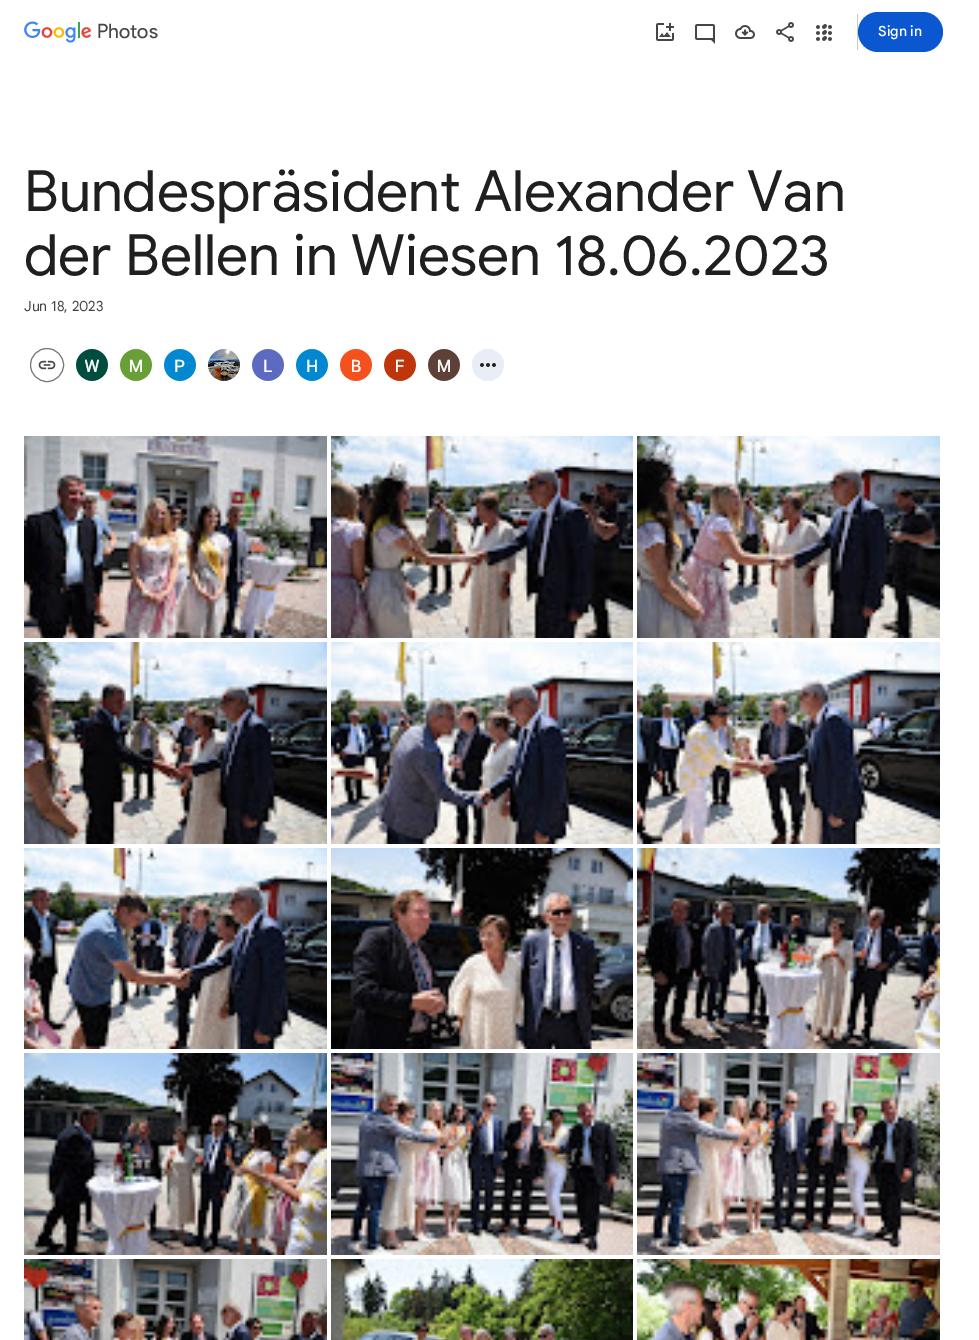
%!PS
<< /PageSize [979 1340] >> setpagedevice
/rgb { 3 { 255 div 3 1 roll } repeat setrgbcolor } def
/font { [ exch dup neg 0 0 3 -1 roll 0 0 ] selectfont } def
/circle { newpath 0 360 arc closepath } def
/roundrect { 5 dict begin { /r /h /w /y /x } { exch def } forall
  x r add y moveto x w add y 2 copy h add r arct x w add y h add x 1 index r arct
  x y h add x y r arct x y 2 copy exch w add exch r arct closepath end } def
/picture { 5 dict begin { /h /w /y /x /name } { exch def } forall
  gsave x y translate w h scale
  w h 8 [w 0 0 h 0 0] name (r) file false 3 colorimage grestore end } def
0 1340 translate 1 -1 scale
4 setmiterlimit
255 255 255 rgb
0 0 979 1340 rectfill
(img/1.rgb) 24 21 68 22 picture
(img/2.rgb) 656 23 18 18 picture
(img/3.rgb) 695 24 20 20 picture
(img/4.rgb) 735 25 20 14 picture
(img/5.rgb) 776 22 18 20 picture
(img/6.rgb) 823 24 4 16 picture
196 199 197 rgb
857 14 1 36 rectfill
116 119 117 rgb
47 365 16.5 circle stroke
(img/7.rgb) 38 360 18 10 picture
(img/8.rgb) 76 349 32 32 picture
(img/9.rgb) 120 349 32 32 picture
(img/10.rgb) 164 349 32 32 picture
(img/11.rgb) 208 349 32 32 picture
(img/12.rgb) 252 349 32 32 picture
(img/13.rgb) 296 349 32 32 picture
(img/14.rgb) 340 349 32 32 picture
(img/15.rgb) 384 349 32 32 picture
(img/16.rgb) 428 349 32 32 picture
233 238 246 rgb
488 365 16 circle fill
(img/17.rgb) 480 363 16 4 picture
(img/18.rgb) 24 436 303 202 picture
(img/19.rgb) 331 436 302 202 picture
(img/20.rgb) 637 436 303 202 picture
(img/21.rgb) 24 642 303 202 picture
(img/22.rgb) 331 642 302 202 picture
(img/23.rgb) 637 642 303 202 picture
(img/24.rgb) 24 848 303 201 picture
(img/25.rgb) 331 848 302 201 picture
(img/26.rgb) 637 848 303 201 picture
(img/27.rgb) 24 1053 303 202 picture
(img/28.rgb) 331 1053 302 202 picture
(img/29.rgb) 637 1053 303 202 picture
(img/30.rgb) 24 1259 303 81 picture
(img/31.rgb) 331 1259 302 81 picture
(img/32.rgb) 637 1259 303 81 picture
(img/33.rgb) 816 25 16 16 picture
11 87 208 rgb
858 12 85 40 20 roundrect fill
/ProductSans-Regular 20 font
68 71 70 rgb
97 38 moveto (Photos) show
/GoogleSans-Regular 57 font
31 31 31 rgb
24 211 moveto (Bundespräsident Alexander Van) show
24 275 moveto (der Bellen in Wiesen 18.06.2023) show
/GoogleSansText-Regular 14 font
68 71 70 rgb
24 311 moveto (Jun 18, 2023) show
/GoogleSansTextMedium-Medium 14 font
255 255 255 rgb
878 36 moveto (Sign in) show
showpage
